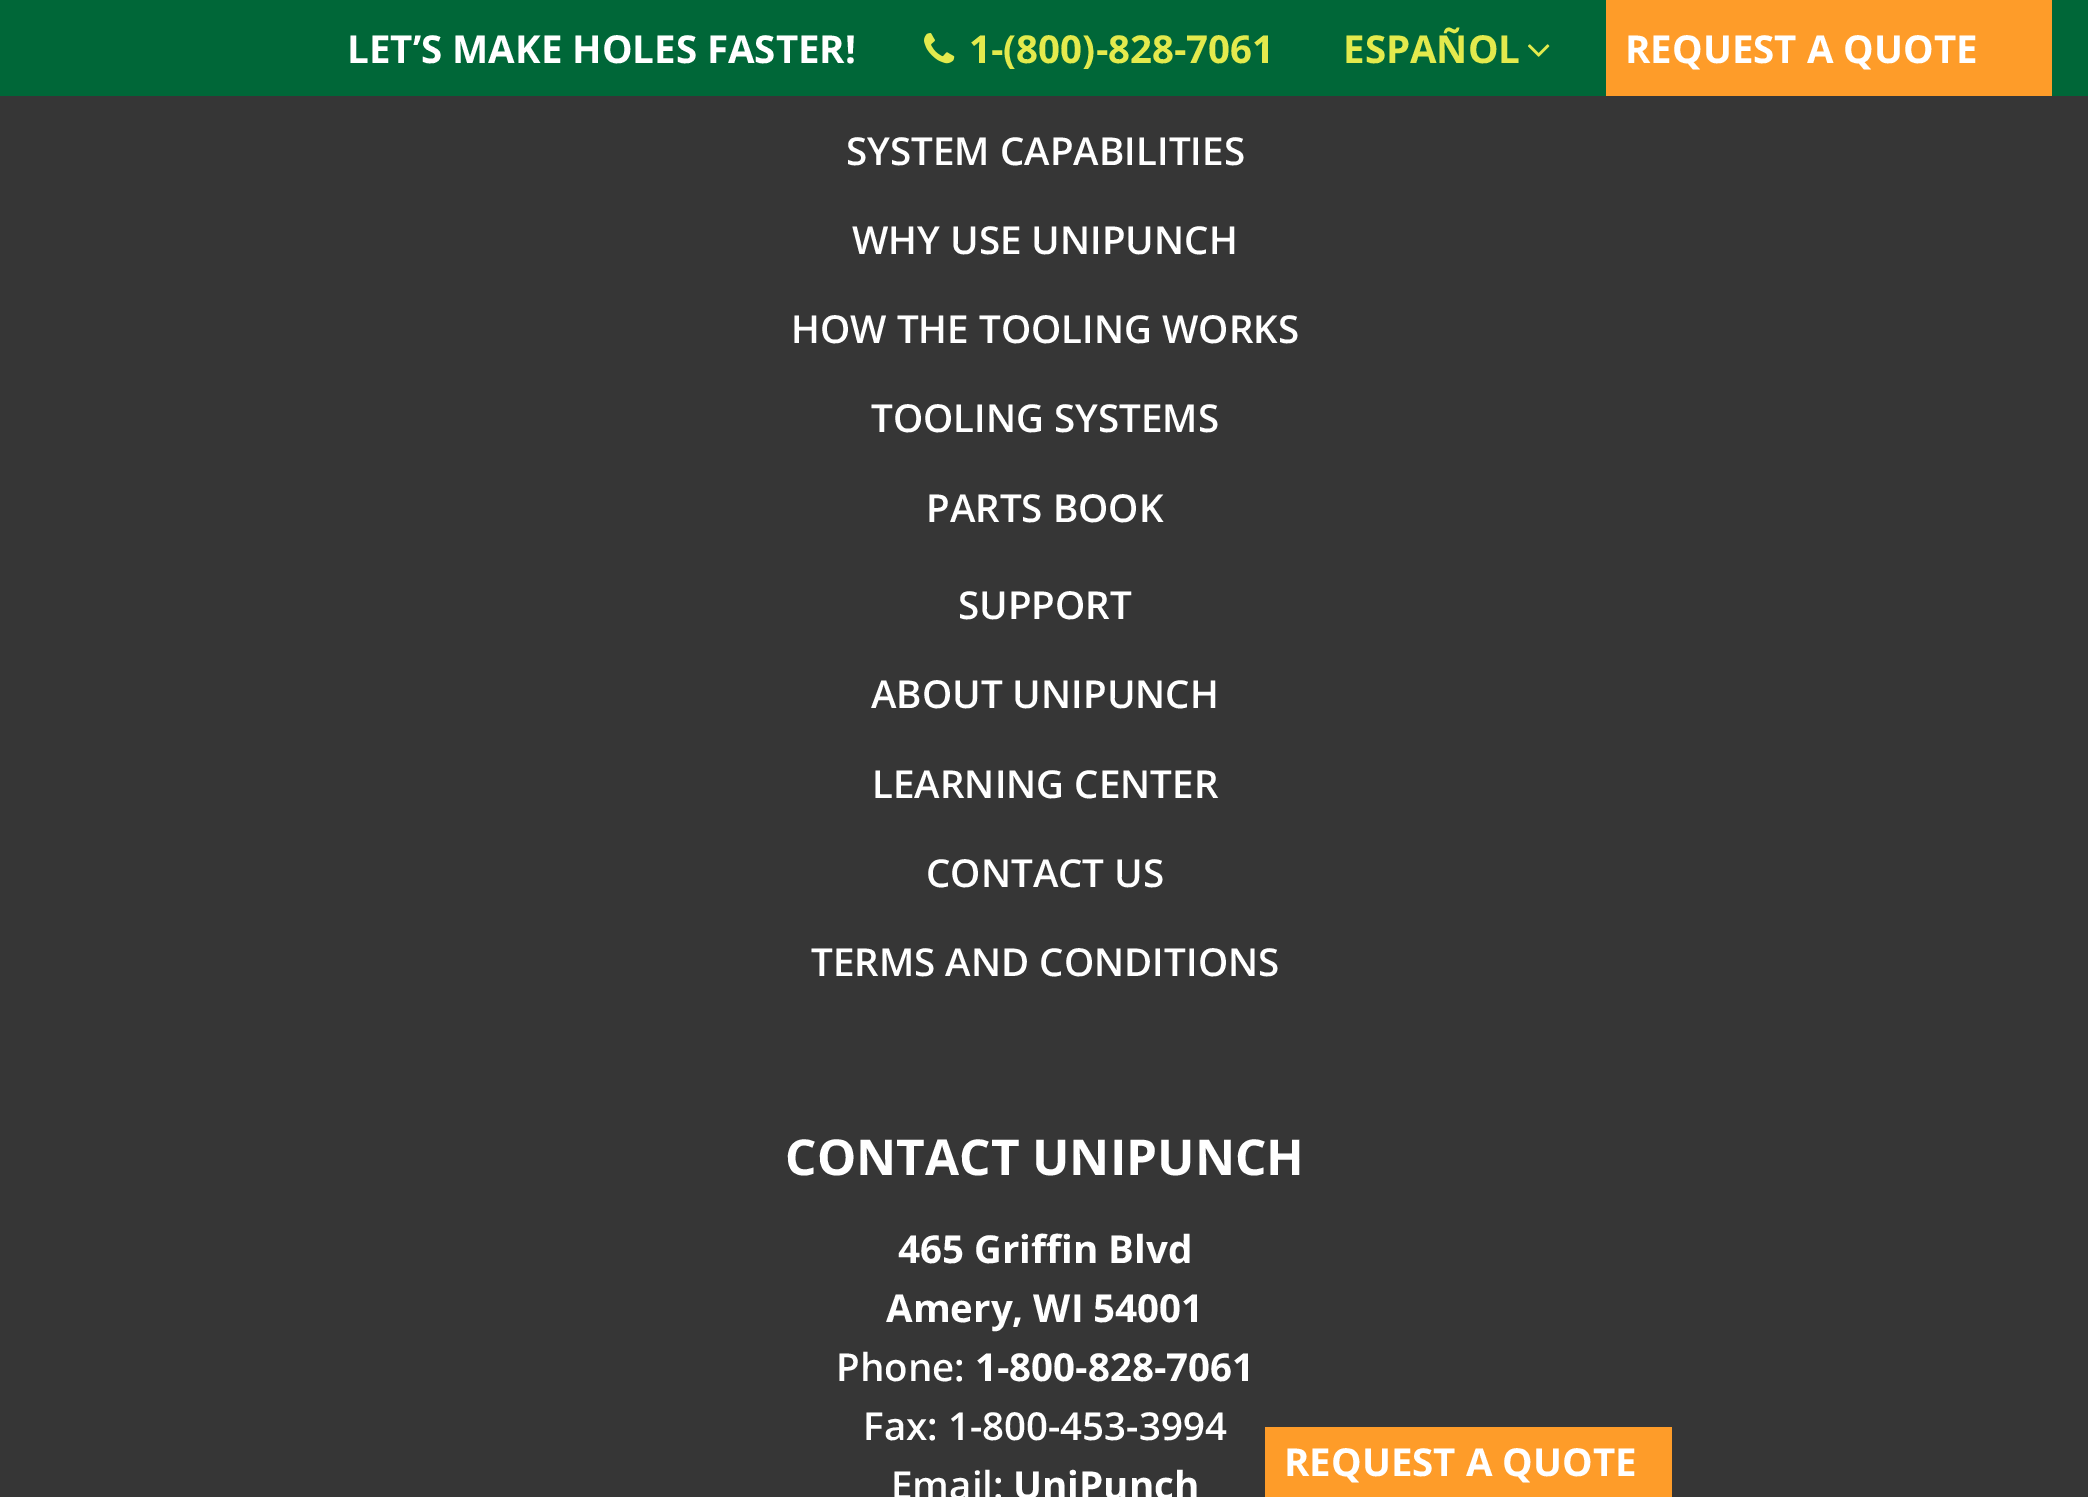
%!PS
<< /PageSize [2088 1497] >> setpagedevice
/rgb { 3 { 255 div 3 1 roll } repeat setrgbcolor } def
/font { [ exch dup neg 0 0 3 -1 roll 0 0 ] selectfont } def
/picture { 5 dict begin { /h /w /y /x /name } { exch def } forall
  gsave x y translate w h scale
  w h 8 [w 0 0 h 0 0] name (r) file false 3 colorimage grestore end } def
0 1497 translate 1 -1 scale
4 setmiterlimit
54 54 54 rgb
0 0 2088 1497 rectfill
0 103 56 rgb
0 0 2088 96 rectfill
(img/1.rgb) 924 33 31 31 picture
(img/2.rgb) 1528 44 22 13 picture
254 156 41 rgb
1606 0 446 96 rectfill
1265 1427 407 70 rectfill
/OpenSans-Bold 38.5 font
255 255 255 rgb
347 63 moveto (LET’S MAKE HOLES FASTER!) show
227 234 77 rgb
969 63 moveto (1-\(800\)-828-7061) show
1343 63 moveto (ESPAÑOL) show
255 255 255 rgb
1625 63 moveto (REQUEST A QUOTE) show
/OpenSans-SemiBold 38.5 font
[
  [(SYSTEM CAPABILITIES) 846 165]
  [(WHY USE UNIPUNCH) 852 254]
  [(HOW THE TOOLING WORKS) 791 343]
  [(TOOLING SYSTEMS) 871 432]
  [(PARTS BOOK) 926 522]
  [(SUPPORT) 958 619]
  [(ABOUT UNIPUNCH) 871 708]
  [(LEARNING CENTER) 872 798]
  [(CONTACT US) 926 887]
  [(TERMS AND CONDITIONS) 811 976]
] { aload pop moveto show } forall
/OpenSans-Bold 49.5 font
785 1175 moveto (CONTACT UNIPUNCH) show
/OpenSans-Bold 38.5 font
898 1263 moveto (465 Griffin Blvd) show
886 1322 moveto (Amery, WI 54001) show
/OpenSans-SemiBold 38.5 font
836 1381 moveto (Phone:) show
/OpenSans-Bold 38.5 font
975 1381 moveto (1-800-828-7061) show
/OpenSans-SemiBold 38.5 font
863 1440 moveto (Fax: 1-800-453-3994) show
891 1499 moveto (Email:) show
/OpenSans-Bold 38.5 font
1013 1499 moveto (UniPunch) show
1284 1476 moveto (REQUEST A QUOTE) show
showpage
